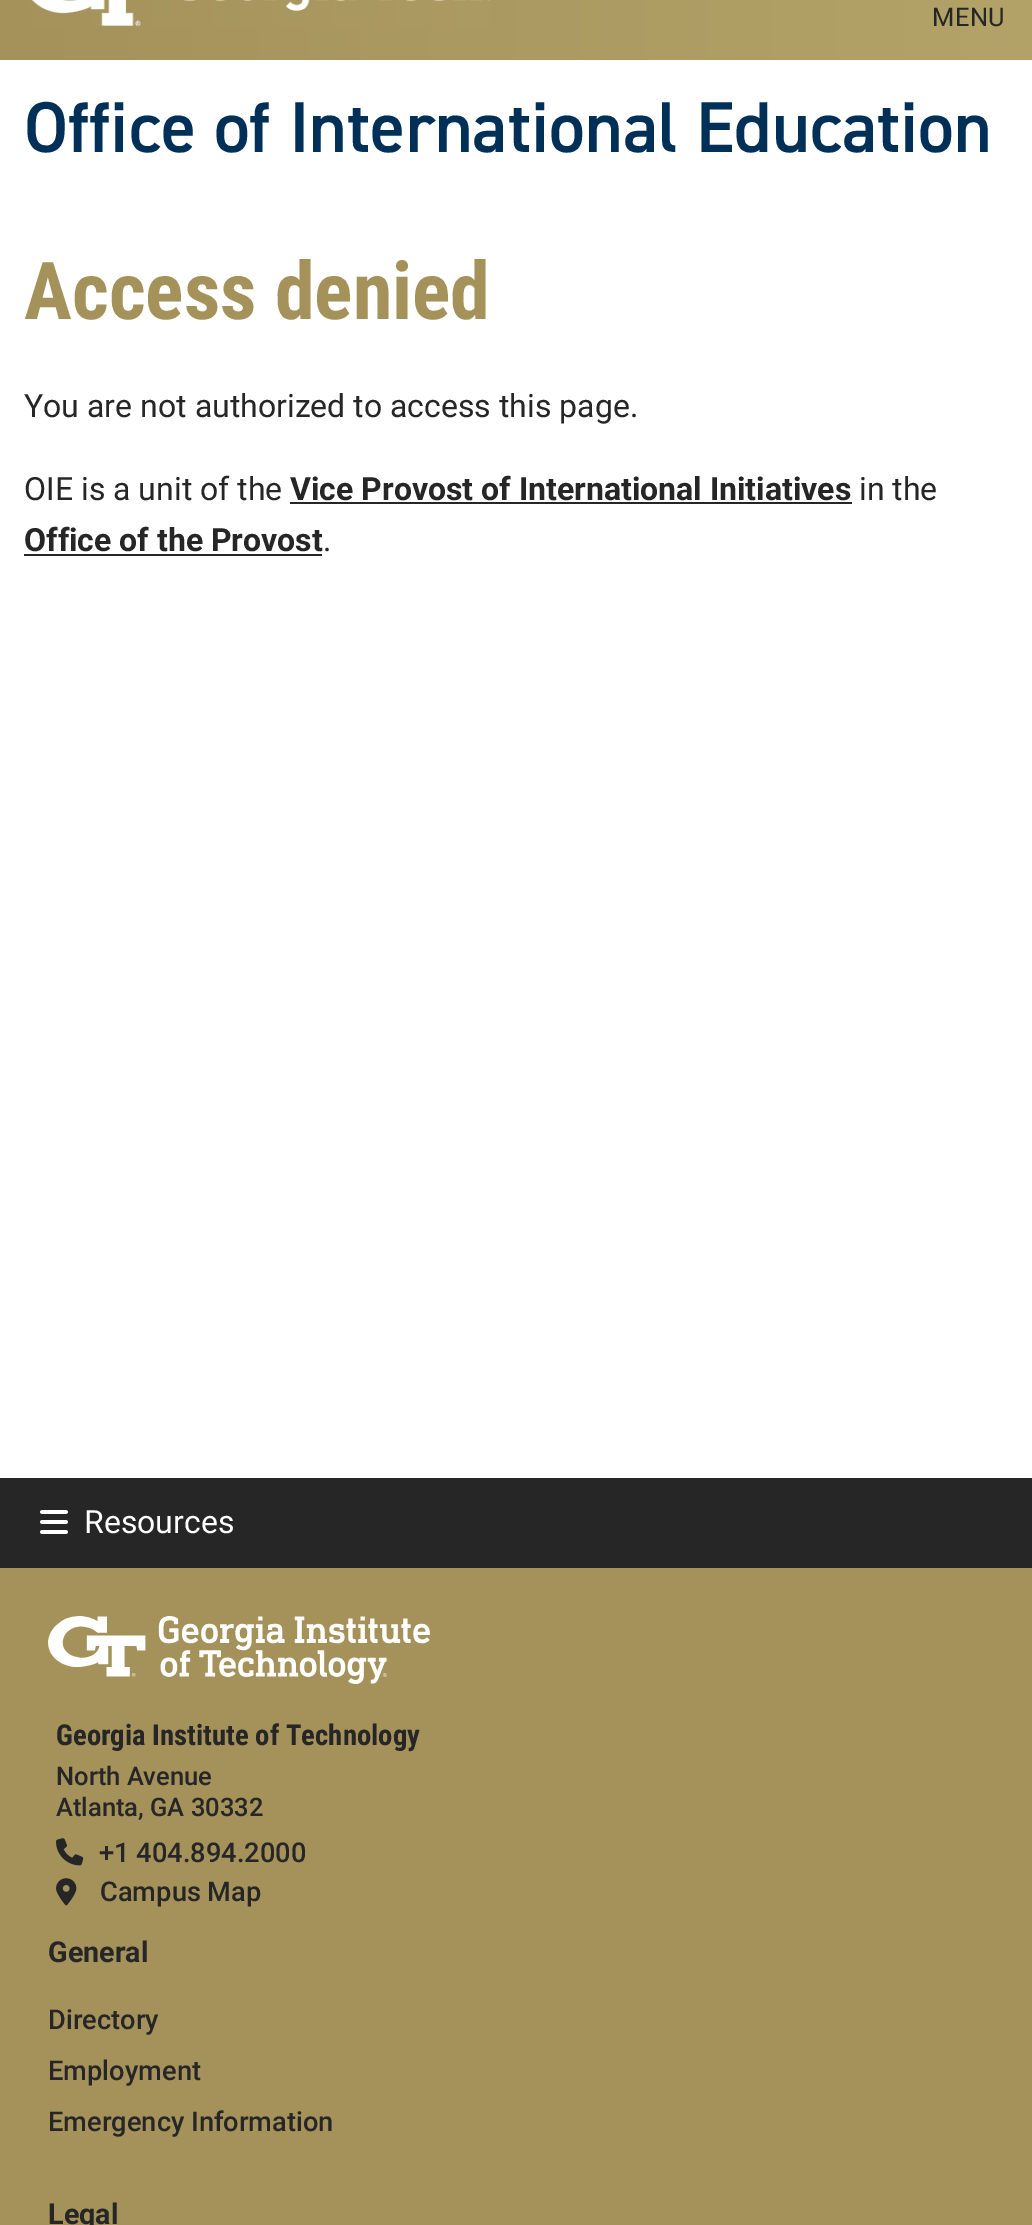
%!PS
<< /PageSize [1032 2225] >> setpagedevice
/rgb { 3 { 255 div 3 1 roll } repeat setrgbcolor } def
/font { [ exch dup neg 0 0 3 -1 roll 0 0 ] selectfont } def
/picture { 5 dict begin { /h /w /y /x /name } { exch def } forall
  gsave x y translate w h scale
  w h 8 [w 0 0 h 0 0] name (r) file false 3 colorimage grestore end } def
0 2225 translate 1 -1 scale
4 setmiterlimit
255 255 255 rgb
0 0 1032 2225 rectfill
gsave 0 0 moveto 1032 0 lineto 1032 60 lineto 0 60 lineto closepath clip newpath
<< /ShadingType 2 /ColorSpace /DeviceRGB /Coords [0 -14 1032 -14] /Extend [true true] /Function << /FunctionType 2 /Domain [0 1] /C0 [0.643 0.573 0.353] /C1 [0.702 0.639 0.412] /N 1 >> >> shfill grestore
(img/1.rgb) 31 0 459 26 picture
[
  [290 502 562 2 38 38 38]
  [24 554 298 2 38 38 38]
  [0 1478 1032 90 38 38 38]
] { aload pop rgb rectfill } forall
(img/2.rgb) 40 1510 28 24 picture
164 146 90 rgb
0 1568 1032 657 rectfill
(img/3.rgb) 48 1616 382 68 picture
(img/4.rgb) 56 1838 28 28 picture
(img/5.rgb) 56 1878 21 28 picture
/Roboto-Regular 25.5 font
38 38 38 rgb
932 26 moveto 0.5 0 (MENU) ashow
/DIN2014-SemiBold 72 font
0 48 87 rgb
24 152 moveto (Office of International Education) show
/RobotoCondensed-Bold 80 font
164 146 90 rgb
24 319 moveto (Access denied) show
/Roboto-Regular 32 font
38 38 38 rgb
24 417 moveto (You are not authorized to access this page.) show
24 500 moveto (OIE is a unit of the) show
/Roboto-Bold 32 font
290 500 moveto (Vice Provost of International Initiatives) show
/Roboto-Regular 32 font
859 500 moveto (in the) show
/Roboto-Bold 32 font
24 551 moveto (Office of the Provost) show
/Roboto-Regular 32 font
323 551 moveto (.) show
255 255 255 rgb
84 1533 moveto (Resources) show
/RobotoCondensed-Bold 28.75 font
38 38 38 rgb
56 1745 moveto (Georgia Institute of Technology) show
/Roboto-Medium 25.5 font
56 1785 moveto (North Avenue) show
56 1816 moveto (Atlanta, GA 30332) show
/Roboto-Medium 27.25 font
99 1862 moveto (+1 404.894.2000) show
100 1901 moveto (Campus Map) show
/Roboto-Bold 28.75 font
48 1962 moveto (General) show
/Roboto-Medium 27.25 font
[
  [(Directory) 48 2029]
  [(Employment) 48 2080]
  [(Emergency Information) 48 2131]
] { aload pop moveto show } forall
/Roboto-Bold 28.75 font
48 2224 moveto (Legal) show
showpage
